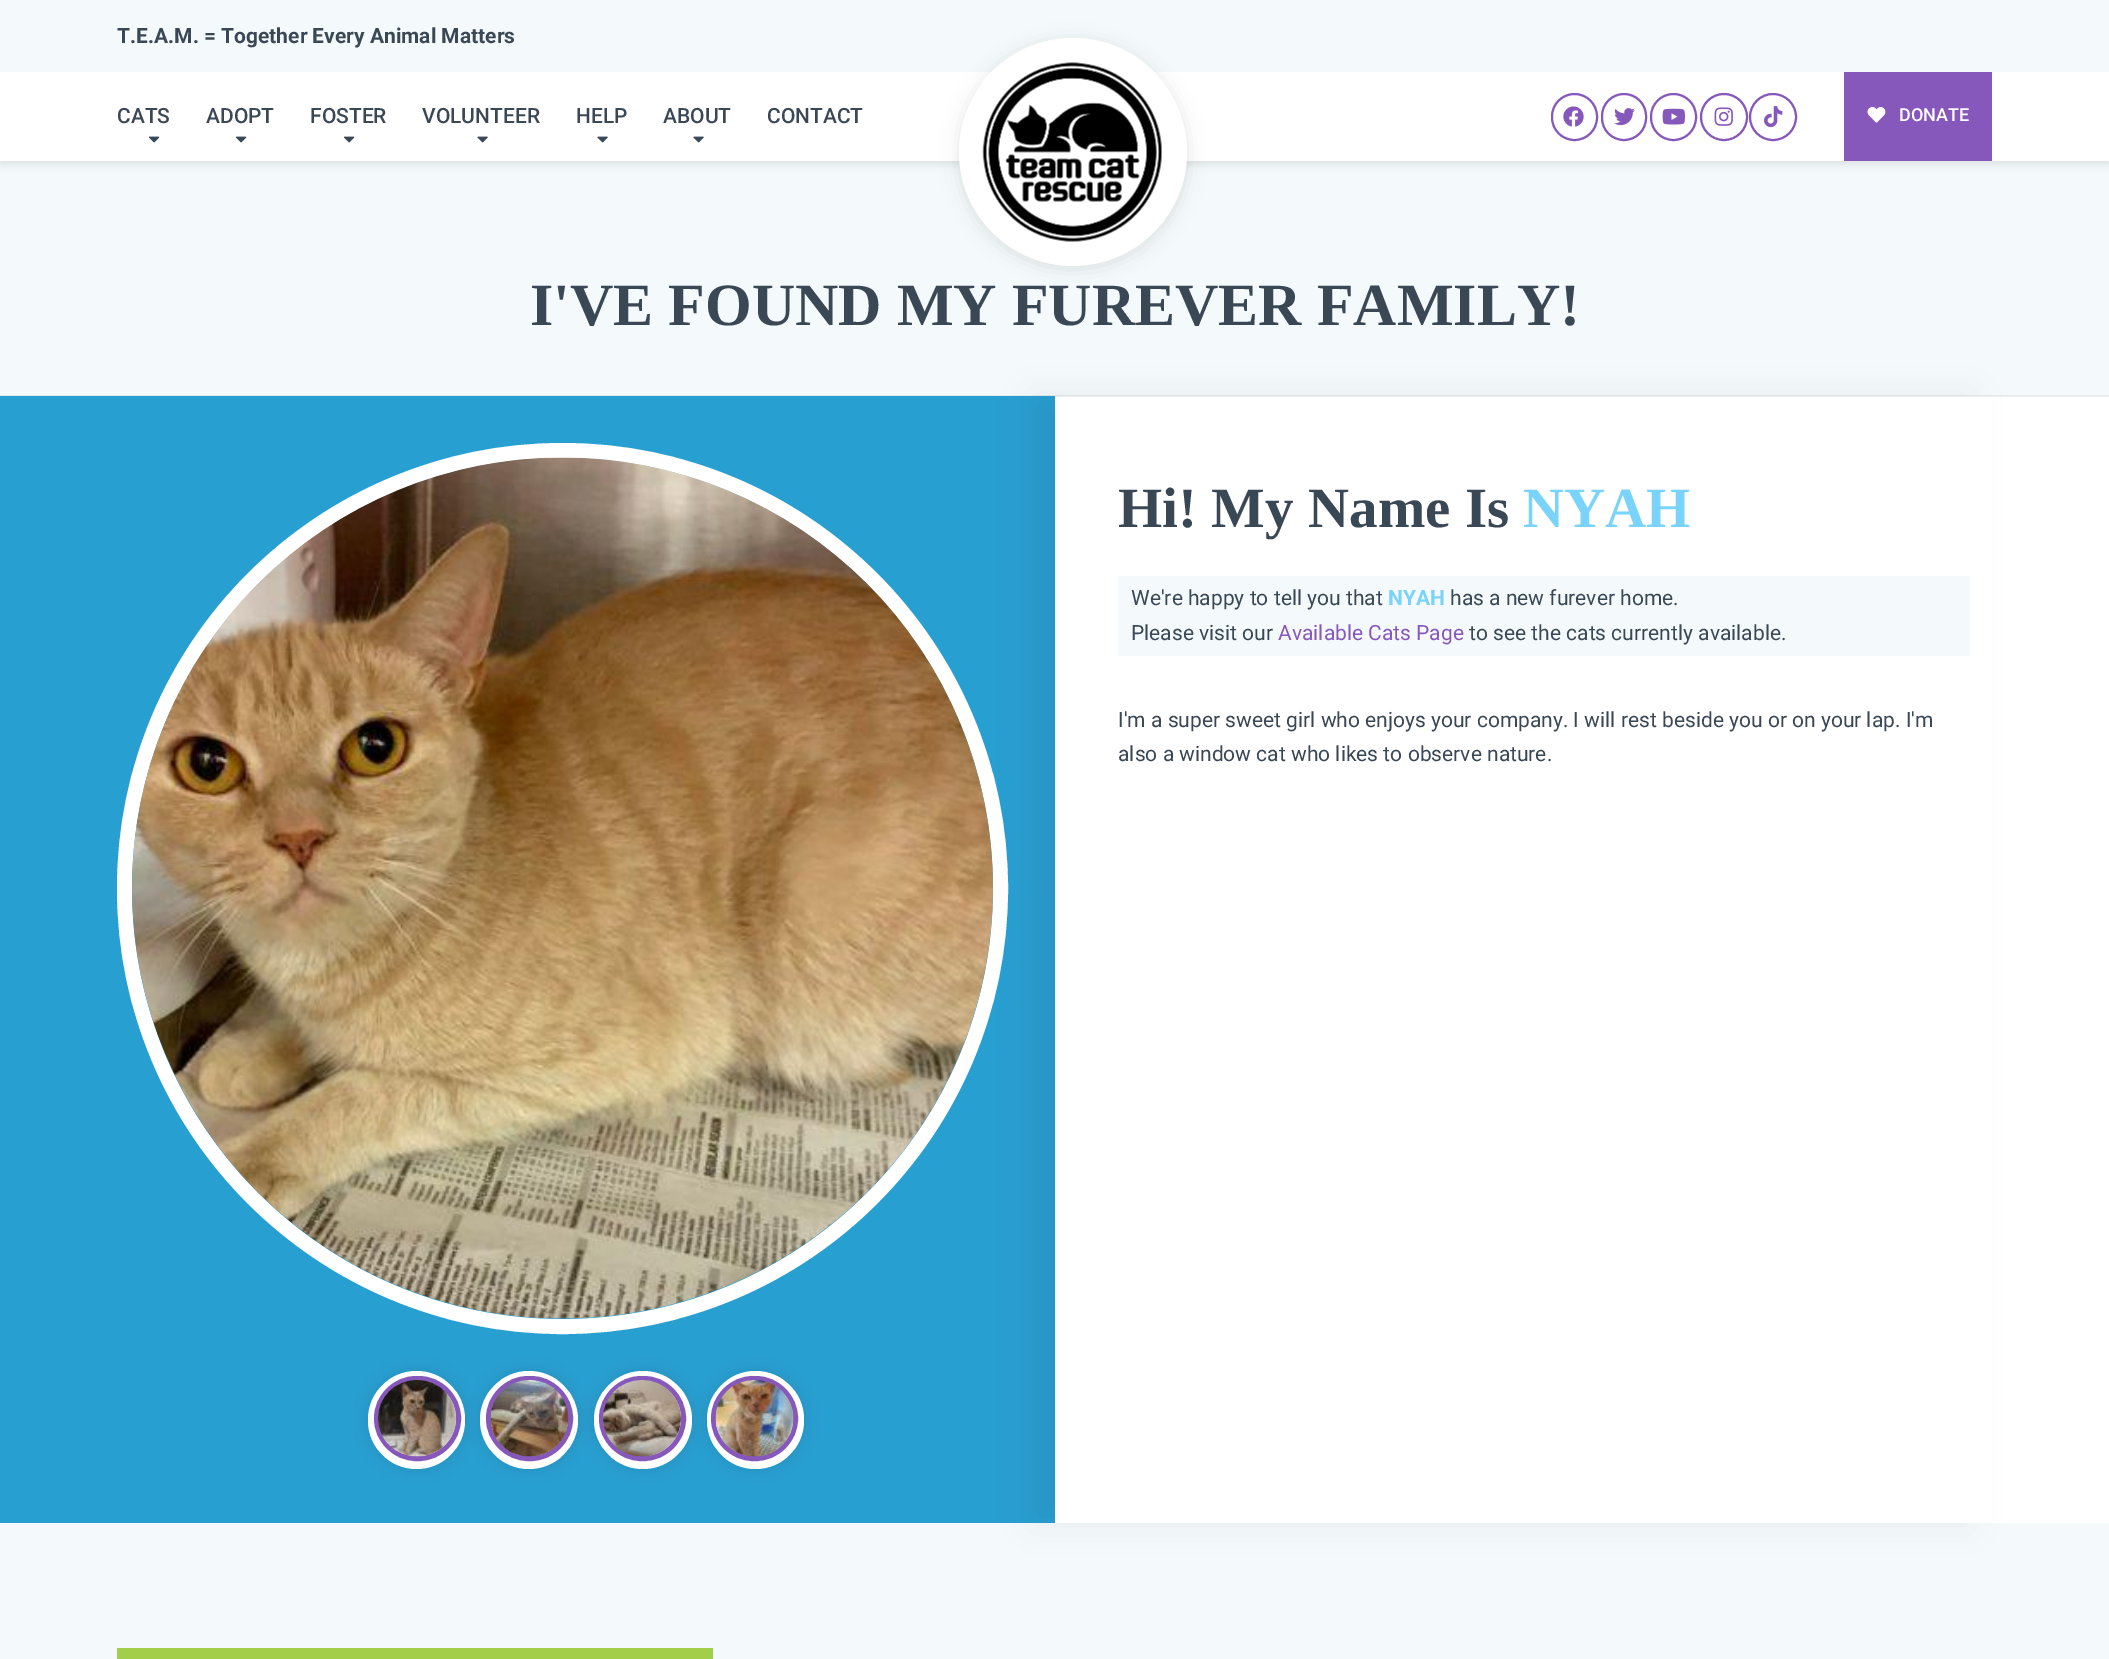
%!PS
<< /PageSize [2109 1659] /PageUsesTransparency true >> setpagedevice
/rgb { 3 { 255 div 3 1 roll } repeat setrgbcolor } def
/font { [ exch dup neg 0 0 3 -1 roll 0 0 ] selectfont } def
/alpha { dup .setfillconstantalpha .setstrokeconstantalpha } def
/circle { newpath 0 360 arc closepath } def
/roundrect { 5 dict begin { /r /h /w /y /x } { exch def } forall
  x r add y moveto x w add y 2 copy h add r arct x w add y h add x 1 index r arct
  x y h add x y r arct x y 2 copy exch w add exch r arct closepath end } def
/shadow { 12 dict begin { /a /b /q /h /w /y /x } { exch def } forall gsave /was 0 def
  9 -2 -9 { dup b mul 4 div /e exch def 1 sub .425 mul 2.718 exch exp 1 add a .99 .min exch div /now exch def
    1 1 now sub 1 was sub div sub alpha /was now def
    w h .min e 2 mul add 0 gt { x e sub y e sub w e 2 mul add h e 2 mul add
      q e add b .6 mul add w h .min 2 div e add .min 0 .max roundrect fill } if } for grestore end } def
/picture { 5 dict begin { /h /w /y /x /name } { exch def } forall
  gsave x y translate w h scale
  w h 8 [w 0 0 h 0 0] name (r) file false 3 colorimage grestore end } def
0 .pushpdf14devicefilter
0 1659 translate 1 -1 scale
4 setmiterlimit
255 255 255 rgb
0 0 2109 1659 rectfill
240 240 240 rgb
1055 396 1054 1 rectfill
244 249 252 rgb
0 161 2109 234 rectfill
0 0 0 rgb
0 3 2109 161 0 4.5 0.1 shadow
244 249 252 rgb
0 0 2109 72 rectfill
255 255 255 rgb
0 72 2109 89 rectfill
(img/1.rgb) 148 136 12 7 picture
(img/1.rgb) 235 136 12 7 picture
(img/1.rgb) 343 136 12 7 picture
(img/2.rgb) 477 136 11 7 picture
(img/2.rgb) 597 136 11 7 picture
(img/2.rgb) 693 136 11 7 picture
0 0 0 rgb
959 41 228 228 114 9 0.11 shadow
255 255 255 rgb
1073 152 114 circle fill
(img/3.rgb) 982 62 180 180 picture
135 88 187 rgb
2 setlinewidth
1552 94 45 46 22.5 roundrect stroke
(img/4.rgb) 1563 106 21 21 picture
1602 94 44 46 22 roundrect stroke
(img/5.rgb) 1614 108 21 18 picture
1651 94 45 46 22.5 roundrect stroke
(img/6.rgb) 1662 108 23 17 picture
1724 117 23 circle stroke
(img/7.rgb) 1714 107 19 19 picture
1773 117 23 circle stroke
(img/8.rgb) 1764 106 19 22 picture
1844 72 148 89 rectfill
(img/9.rgb) 1867 107 19 16 picture
229 234 237 rgb
0 395 2109 1 rectfill
40 159 209 rgb
-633 396 moveto -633 1523 lineto 305 1523 lineto 305 1522 lineto 117 1522 lineto 117 396 lineto closepath fill
117 396 938 1127 rectfill
255 255 255 rgb
15 setlinewidth
562.5 888.5 438 circle stroke
(img/10.rgb) 132 457 861 862 picture
0 0 0 rgb
368 1371 97 98 48.5 7 0.1 shadow
255 255 255 rgb
368 1371 97 98 48.5 roundrect fill
0 0 0 rgb
480 1371 98 98 49 7 0.1 shadow
135 88 187 rgb
5 setlinewidth
376.5 1378.5 82 80 40 roundrect stroke
(img/11.rgb) 378 1380 78 77 picture
255 255 255 rgb
529 1420 49 circle fill
0 0 0 rgb
594 1371 98 98 49 7 0.1 shadow
135 88 187 rgb
488.5 1378.5 82 80 40 roundrect stroke
(img/12.rgb) 490 1380 79 77 picture
255 255 255 rgb
643 1420 49 circle fill
0 0 0 rgb
707 1371 97 98 48.5 7 0.1 shadow
135 88 187 rgb
601.5 1378.5 82 80 40 roundrect stroke
(img/13.rgb) 603 1380 78 77 picture
255 255 255 rgb
707 1371 97 98 48.5 roundrect fill
135 88 187 rgb
713.5 1378.5 82 80 40 roundrect stroke
(img/14.rgb) 715 1380 79 77 picture
244 249 252 rgb
0 1523 2109 136 rectfill
gsave
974 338 moveto 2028 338 lineto 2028 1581 lineto 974 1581 lineto closepath 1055 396 moveto 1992 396 lineto 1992 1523 lineto 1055 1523 lineto closepath eoclip newpath
0 0 0 rgb
1032 396 938 1127 0 19 0.06 shadow
grestore
1118 576 852 80 rectfill
163 206 73 rgb
117 1648 596 11 rectfill
/Roboto-Bold 21 font
58 72 86 rgb
117 43 moveto (T.E.A.M. = Together Every Animal Matters) show
/Roboto-Medium 21 font
[
  [(CATS) 117 123]
  [(ADOPT) 206 123]
  [(FOSTER) 310 123]
  [(VOLUNTEER) 422 123]
  [(HELP) 576 123]
  [(ABOUT) 663 123]
  [(CONTACT) 767 123]
] { aload pop moveto show } forall
/Roboto-Medium 18 font
255 255 255 rgb
1899 121 moveto (DONATE) show
/LiberationSerif-Bold 60 font
58 72 86 rgb
530 325 moveto (I'VE FOUND MY FUREVER FAMILY!) show
/LiberationSerif-Bold 57 font
1118 527 moveto (Hi! My Name Is) show
121 211 250 rgb
1523 527 moveto (NYAH) show
/Roboto-Regular 21 font
58 72 86 rgb
1131 605 moveto (We're happy to tell you that) show
/Roboto-Bold 21 font
121 211 250 rgb
1388 605 moveto (NYAH) show
/Roboto-Regular 21 font
58 72 86 rgb
1450 605 moveto (has a new furever home.) show
1131 640 moveto (Please visit our) show
135 88 187 rgb
1278 640 moveto (Available Cats Page) show
58 72 86 rgb
[
  [(to see the cats currently available.) 1469 640]
  [(I'm a super sweet girl who enjoys your company. I will rest beside you or on your lap. I'm) 1118 727]
  [(also a window cat who likes to observe nature.) 1118 761]
] { aload pop moveto show } forall
.poppdf14devicefilter showpage
